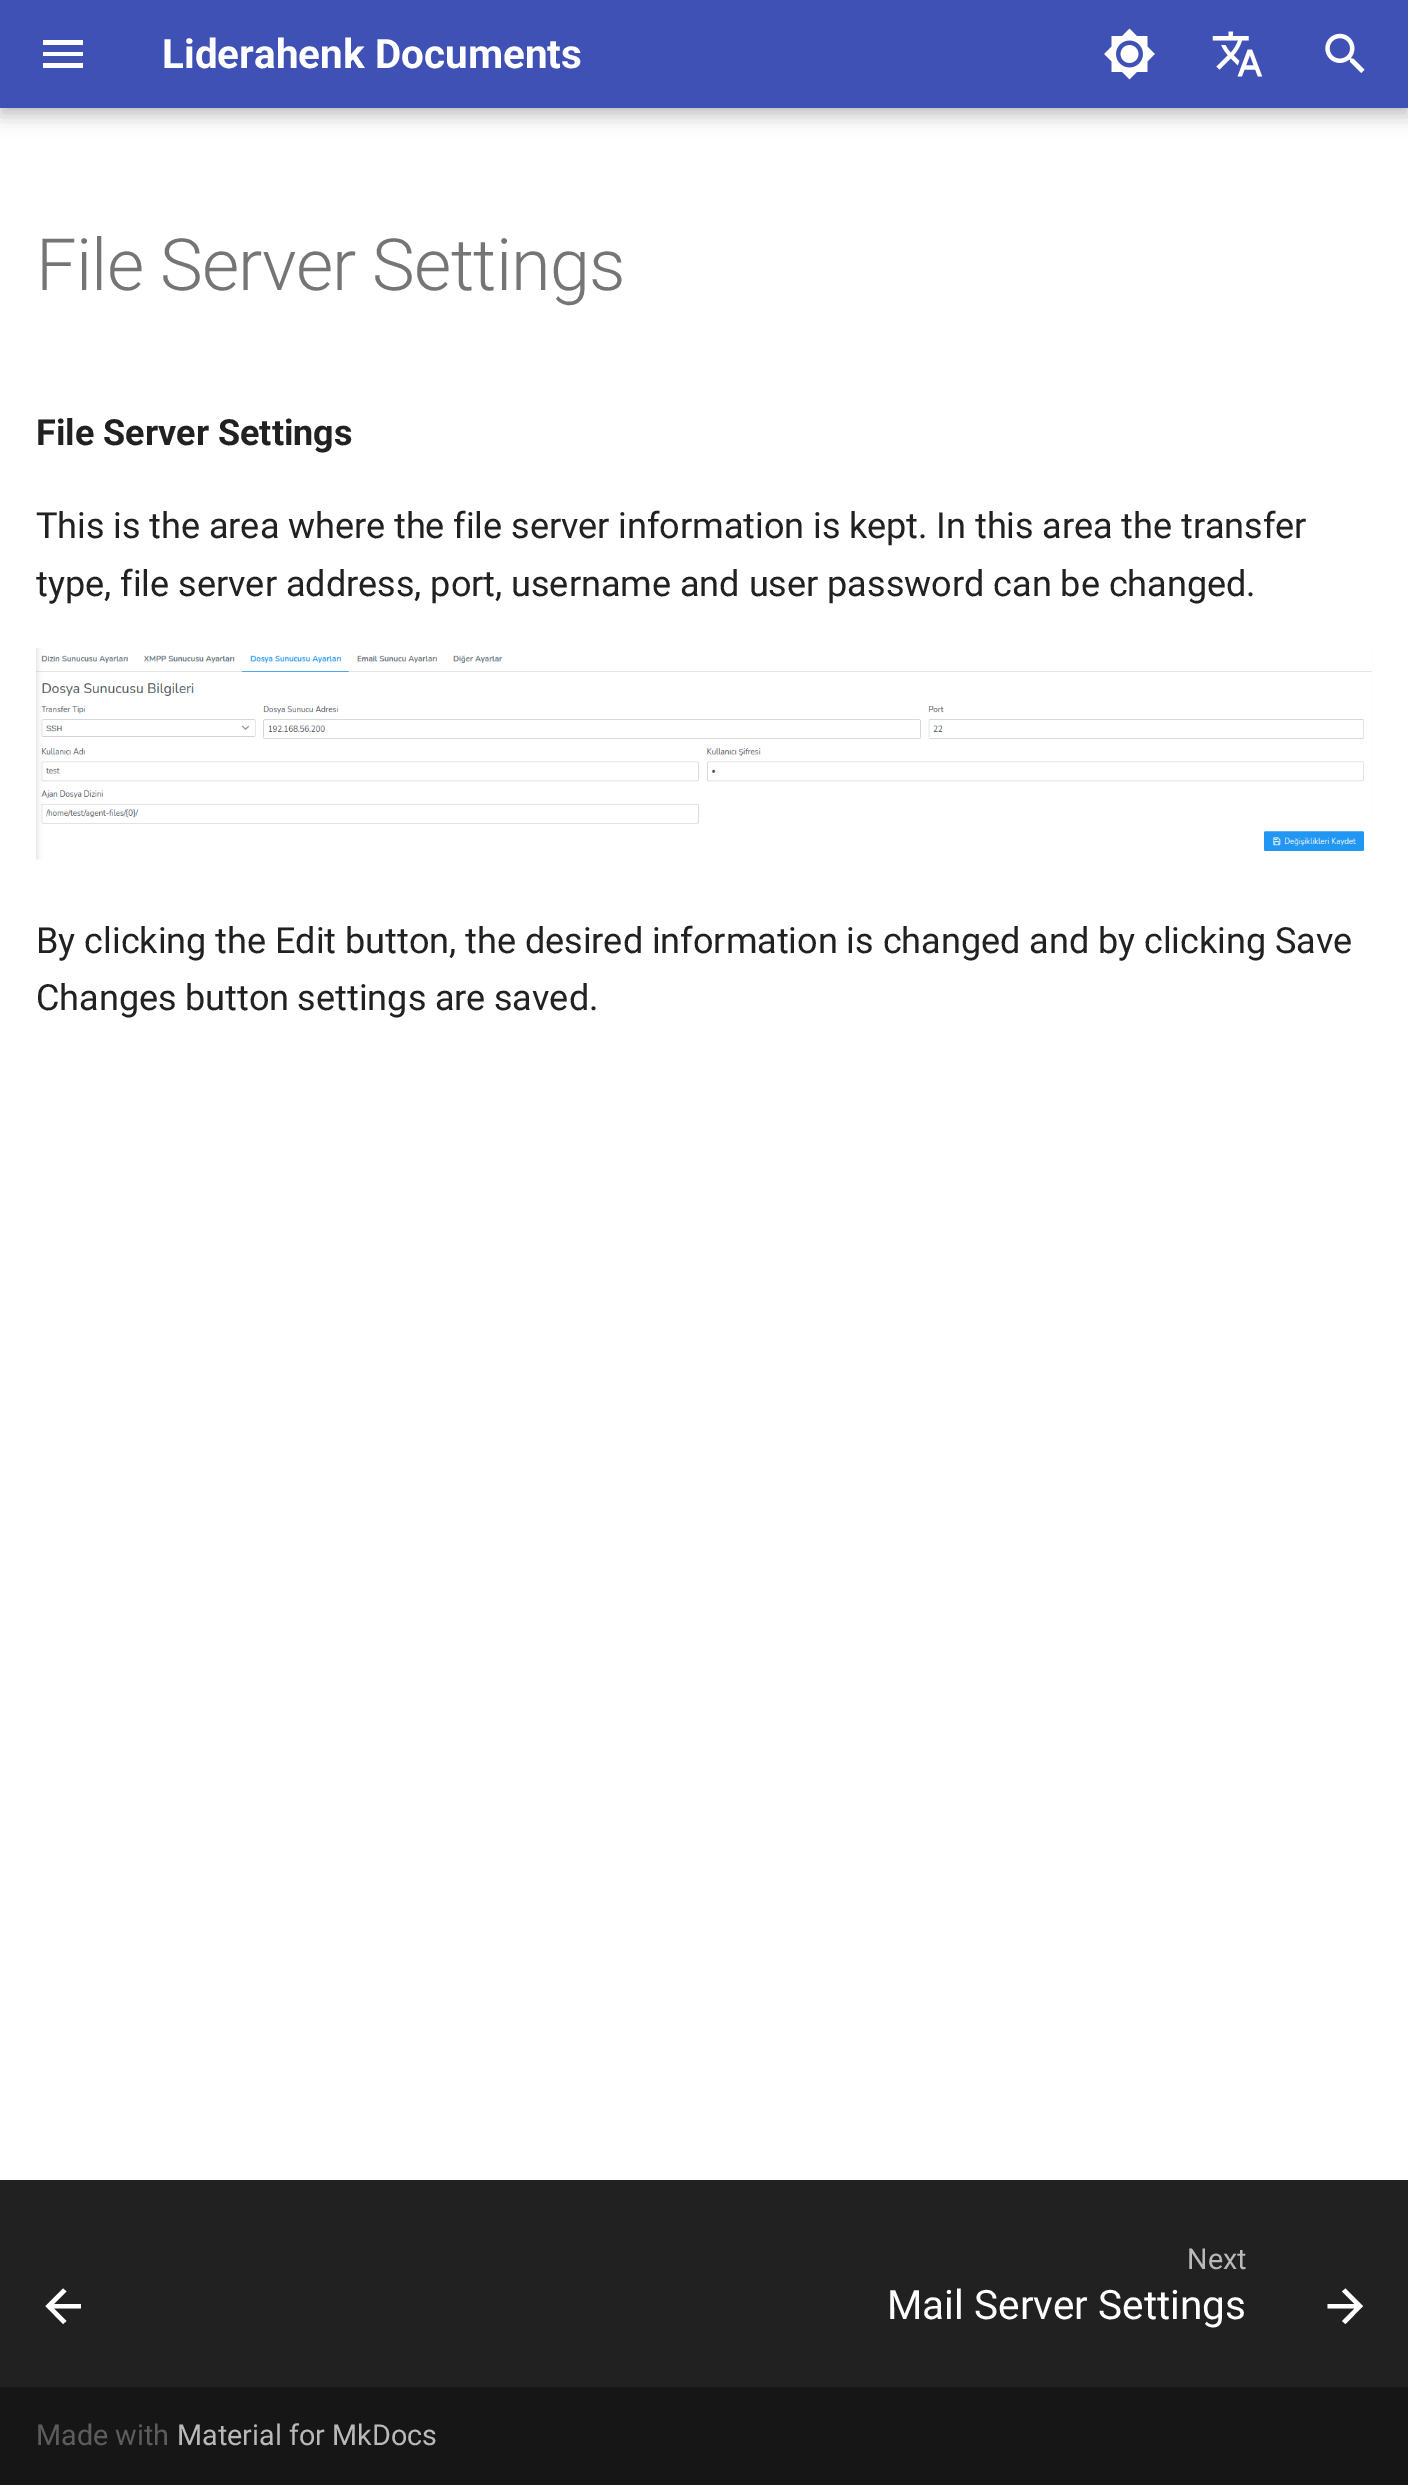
%!PS
<< /PageSize [1408 2485] /PageUsesTransparency true >> setpagedevice
/rgb { 3 { 255 div 3 1 roll } repeat setrgbcolor } def
/font { [ exch dup neg 0 0 3 -1 roll 0 0 ] selectfont } def
/alpha { dup .setfillconstantalpha .setstrokeconstantalpha } def
/roundrect { 5 dict begin { /r /h /w /y /x } { exch def } forall
  x r add y moveto x w add y 2 copy h add r arct x w add y h add x 1 index r arct
  x y h add x y r arct x y 2 copy exch w add exch r arct closepath end } def
/shadow { 12 dict begin { /a /b /q /h /w /y /x } { exch def } forall gsave /was 0 def
  9 -2 -9 { dup b mul 4 div /e exch def 1 sub .425 mul 2.718 exch exp 1 add a .99 .min exch div /now exch def
    1 1 now sub 1 was sub div sub alpha /was now def
    w h .min e 2 mul add 0 gt { x e sub y e sub w e 2 mul add h e 2 mul add
      q e add b .6 mul add w h .min 2 div e add .min 0 .max roundrect fill } if } for grestore end } def
/picture { 5 dict begin { /h /w /y /x /name } { exch def } forall
  gsave x y translate w h scale
  w h 8 [w 0 0 h 0 0] name (r) file false 3 colorimage grestore end } def
0 .pushpdf14devicefilter
0 2485 translate 1 -1 scale
4 setmiterlimit
255 255 255 rgb
0 0 1408 2485 rectfill
0 0 0 rgb
0 9 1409 108 0 9 0.2 shadow
0 0 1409 108 0 4.5 0.1 shadow
64 81 181 rgb
0 0 1408 108 rectfill
255 255 255 rgb
43 40 moveto 83 40 lineto 83 45 lineto 43 45 lineto 43 40 lineto 43 52 moveto 83 52 lineto 83 56 lineto 43 56 lineto 43 52 lineto 43 63 moveto 83 63 lineto 83 68 lineto 43 68 lineto closepath fill
(img/1.rgb) 1104 28 51 52 picture
(img/2.rgb) 1212 31 51 46 picture
(img/3.rgb) 1325 33 40 40 picture
(img/4.rgb) 36 648 1337 212 picture
33 33 33 rgb
0 2180 1408 207 rectfill
255 255 255 rgb
81 2304 moveto 81 2308.5 lineto 54 2308.5 lineto 66.5 2321 lineto 63 2324 lineto 45.5 2306 lineto 63 2288.5 lineto 66.5 2291.5 lineto 54 2304 lineto closepath fill
1327.5 2304 moveto 1327.5 2308.5 lineto 1354.5 2308.5 lineto 1342 2321 lineto 1345.5 2324 lineto 1363 2306 lineto 1345.5 2288.5 lineto 1342 2291.5 lineto 1354.5 2304 lineto closepath fill
22 22 22 rgb
0 2387 1408 98 rectfill
/Roboto-Bold 40.5 font
255 255 255 rgb
162 68 moveto (Liderahenk Documents) show
/Roboto-Light 72 font
117 117 117 rgb
36 290 moveto -0.75 0 (File Server Settings) ashow
/Roboto-Bold 36 font
33 33 33 rgb
36 445 moveto (File Server Settings) show
/Roboto-Regular 36 font
36 538 moveto -0.25 0 32 (This is the area where the file server information is kept. In this area the transfer) widthshow
36 596 moveto (type, file server address, port, username and user password can be changed.) show
36 953 moveto -0.1 0 32 (By clicking the Edit button, the desired information is changed and by clicking Save) widthshow
36 1010 moveto -0.5 0 32 (Changes button settings are saved.) widthshow
/Roboto-Regular 28.75 font
185 185 185 rgb
1187 2269 moveto (Next) show
/Roboto-Regular 40.5 font
255 255 255 rgb
887 2319 moveto (Mail Server Settings) show
/Roboto-Regular 28.75 font
92 92 92 rgb
36 2445 moveto (Made with) show
185 185 185 rgb
177 2445 moveto (Material for MkDocs) show
.poppdf14devicefilter showpage
